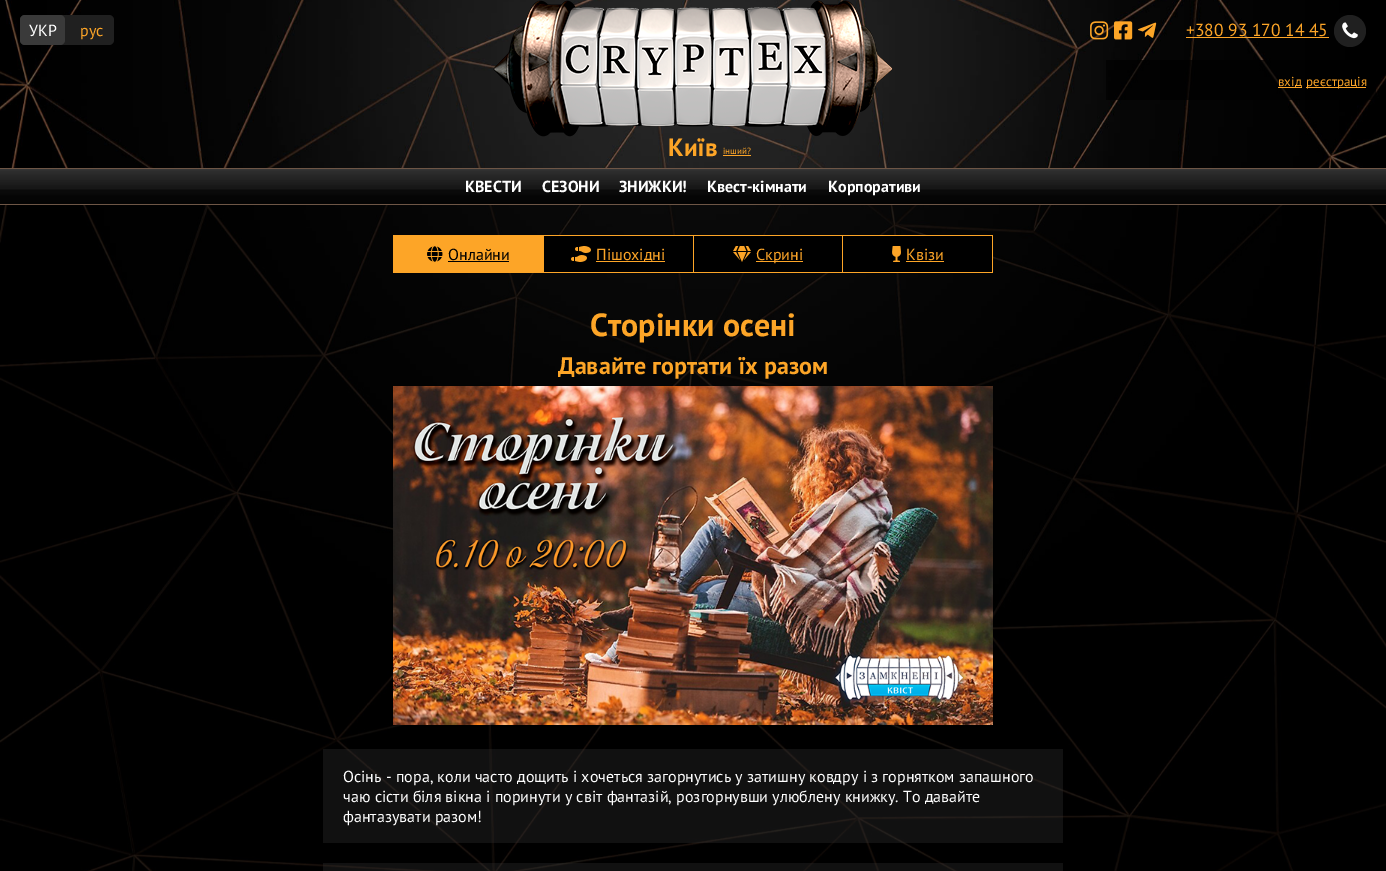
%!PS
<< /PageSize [1386 871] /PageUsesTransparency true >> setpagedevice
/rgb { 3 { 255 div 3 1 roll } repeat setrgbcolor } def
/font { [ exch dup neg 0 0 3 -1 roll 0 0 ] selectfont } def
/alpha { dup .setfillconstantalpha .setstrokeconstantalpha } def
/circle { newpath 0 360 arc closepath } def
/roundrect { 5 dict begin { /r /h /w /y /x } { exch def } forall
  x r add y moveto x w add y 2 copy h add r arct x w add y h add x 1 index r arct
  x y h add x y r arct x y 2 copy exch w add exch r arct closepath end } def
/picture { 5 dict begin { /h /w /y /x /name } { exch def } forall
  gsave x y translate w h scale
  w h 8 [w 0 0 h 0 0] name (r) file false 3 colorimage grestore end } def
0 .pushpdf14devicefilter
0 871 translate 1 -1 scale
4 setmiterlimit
255 255 255 rgb
0 0 1386 871 rectfill
(img/1.rgb) 0 0 1386 871 picture
32 32 32 rgb
20 15 94 30 5 roundrect fill
58 58 58 rgb
20 15 45 30 5 roundrect fill
(img/2.rgb) 1090 21 19 19 picture
(img/3.rgb) 1114 21 19 19 picture
(img/4.rgb) 1138 22 19 16 picture
253 165 39 rgb
1186 37 143 1 rectfill
32 32 32 rgb
1350 31 16 circle fill
(img/5.rgb) 1342 22 16 17 picture
0.7 alpha
[
  [1106 60 270 40 0 0 0]
] { aload pop rgb rectfill } forall
1 alpha
[
  [1278 87 24 1 253 165 39]
  [1306 87 60 1 253 165 39]
] { aload pop rgb rectfill } forall
(img/6.rgb) 493 0 400 137 picture
723 155 28 1 rectfill
(img/7.rgb) 0 169 1386 35 picture
[
  [0 168 1386 1 110 86 70]
  [0 204 1386 1 110 86 70]
] { aload pop rgb rectfill } forall
0.7 alpha
[
  [0 205 1386 666 0 0 0]
] { aload pop rgb rectfill } forall
1 alpha
[
  [393 235 599 37 253 165 39]
  [992 235 1 38 253 165 39]
  [393 272 600 1 253 165 39]
] { aload pop rgb rectfill } forall
(img/8.rgb) 427 246 16 16 picture
0 0 0 rgb
448 261 61 1 rectfill
544 236 149 36 rectfill
(img/9.rgb) 571 246 20 16 picture
253 165 39 rgb
596 261 69 1 rectfill
0 0 0 rgb
694 236 148 36 rectfill
(img/10.rgb) 733 246 18 16 picture
253 165 39 rgb
756 261 47 1 rectfill
0 0 0 rgb
843 236 149 36 rectfill
(img/11.rgb) 892 246 9 16 picture
253 165 39 rgb
906 261 38 1 rectfill
(img/12.rgb) 393 386 600 339 picture
0.3 alpha
56 56 56 rgb
323 749 740 94 rectfill
323 863 740 8 rectfill
/PTSans-Regular 16 font
1 alpha
255 255 255 rgb
29 36 moveto (УКР) show
253 165 39 rgb
80 36 moveto (рус) show
/PTSans-Regular 17.5 font
1186 36 moveto (+380 93 170 14 45) show
/PTSans-Regular 13 font
1278 86 moveto (вхід) show
1306 86 moveto (реєстрація) show
/PTSans-Bold 25 font
668 156 moveto (Київ) show
/PTSans-Regular 9 font
723 154 moveto (інший?) show
/PTSans-Bold 16 font
255 255 255 rgb
[
  [(КВЕСТИ) 465 192]
  [(СЕЗОНИ) 542 192]
  [(ЗНИЖКИ!) 619 192]
  [(Квест-кімнати) 707 192]
  [(Корпоративи) 828 192]
] { aload pop moveto show } forall
/PTSans-Regular 16 font
0 0 0 rgb
448 260 moveto (Онлайни) show
253 165 39 rgb
[
  [(Пішохідні) 596 260]
  [(Скрині) 756 260]
  [(Квізи) 906 260]
] { aload pop moveto show } forall
/PTSans-Bold 32 font
590 336 moveto (Сторінки осені) show
/PTSans-Bold 24 font
558 374 moveto (Давайте гортати їх разом) show
/PTSans-Regular 16 font
255 255 255 rgb
[
  [(Осінь - пора, коли часто дощить і хочеться загорнутись у затишну ковдру і з горнятком запашного) 343 782]
  [(чаю сісти біля вікна і поринути у світ фантазій, розгорнувши улюблену книжку. То давайте) 343 802]
  [(фантазувати разом!) 343 822]
] { aload pop moveto show } forall
.poppdf14devicefilter showpage
